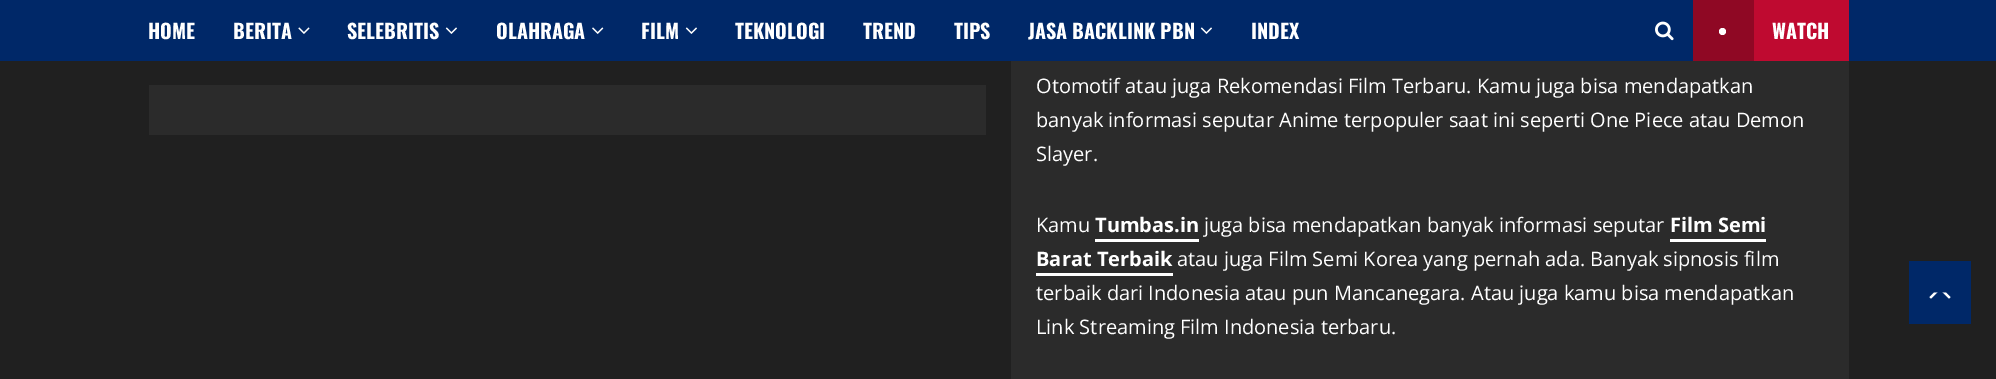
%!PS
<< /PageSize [1996 379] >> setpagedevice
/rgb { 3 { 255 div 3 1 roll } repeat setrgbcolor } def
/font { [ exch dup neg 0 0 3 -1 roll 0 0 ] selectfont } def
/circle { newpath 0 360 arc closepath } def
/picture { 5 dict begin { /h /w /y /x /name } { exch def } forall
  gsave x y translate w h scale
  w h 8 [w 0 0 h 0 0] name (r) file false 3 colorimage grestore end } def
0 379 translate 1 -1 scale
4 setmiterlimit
32 32 32 rgb
0 0 1996 379 rectfill
0 40 104 rgb
0 0 1996 61 rectfill
(img/1.rgb) 298 27 12 7 picture
(img/2.rgb) 445 27 12 7 picture
(img/3.rgb) 592 27 12 7 picture
(img/2.rgb) 685 27 12 7 picture
(img/2.rgb) 1200 27 12 7 picture
(img/4.rgb) 1655 21 19 20 picture
191 10 48 rgb
1754 0 95 61 rectfill
143 8 36 rgb
1693 0 61 61 rectfill
255 255 255 rgb
1722.5 31.5 3.5 circle fill
[
  [149 85 837 50 43 43 43]
  [1011 61 838 318 43 43 43]
  [1095 239 104 3 255 255 255]
  [1670 239 96 3 255 255 255]
  [1036 273 137 3 255 255 255]
  [1909 261 62 63 0 40 104]
] { aload pop rgb rectfill } forall
255 255 255 rgb
1932.5 299 moveto 1931 298.5 1930 298 1929.5 297 curveto 1934 292.5 lineto 1946 292.5 lineto 1950.5 297 lineto 1950 298 1949 298.5 1947.5 299 curveto closepath fill
0 40 104 rgb
1952.5 302.5 moveto 1927.5 302.5 lineto 1940 290 lineto closepath fill
/Oswald-Bold 20 font
255 255 255 rgb
[
  [(HOME) 148 39]
  [(BERITA) 233 39]
  [(SELEBRITIS) 347 39]
  [(OLAHRAGA) 496 39]
  [(FILM) 641 39]
  [(TEKNOLOGI) 735 39]
  [(TREND) 863 39]
  [(TIPS) 954 39]
  [(JASA BACKLINK PBN) 1028 39]
  [(INDEX) 1251 39]
  [(WATCH) 1772 39]
] { aload pop moveto show } forall
/OpenSans-Regular 20 font
[
  [(Otomotif atau juga Rekomendasi Film Terbaru. Kamu juga bisa mendapatkan) 1036 93]
  [(banyak informasi seputar Anime terpopuler saat ini seperti One Piece atau Demon) 1036 127]
  [(Slayer.) 1036 161]
  [(Kamu) 1036 232]
] { aload pop moveto show } forall
/OpenSans-Bold 20 font
1095 232 moveto (Tumbas.in) show
/OpenSans-Regular 20 font
1204 232 moveto (juga bisa mendapatkan banyak informasi seputar) show
/OpenSans-Bold 20 font
1670 232 moveto (Film Semi) show
1036 266 moveto (Barat Terbaik) show
/OpenSans-Regular 20 font
[
  [(atau juga Film Semi Korea yang pernah ada. Banyak sipnosis film) 1177 266]
  [(terbaik dari Indonesia atau pun Mancanegara. Atau juga kamu bisa mendapatkan) 1036 300]
  [(Link Streaming Film Indonesia terbaru.) 1036 334]
] { aload pop moveto show } forall
showpage
